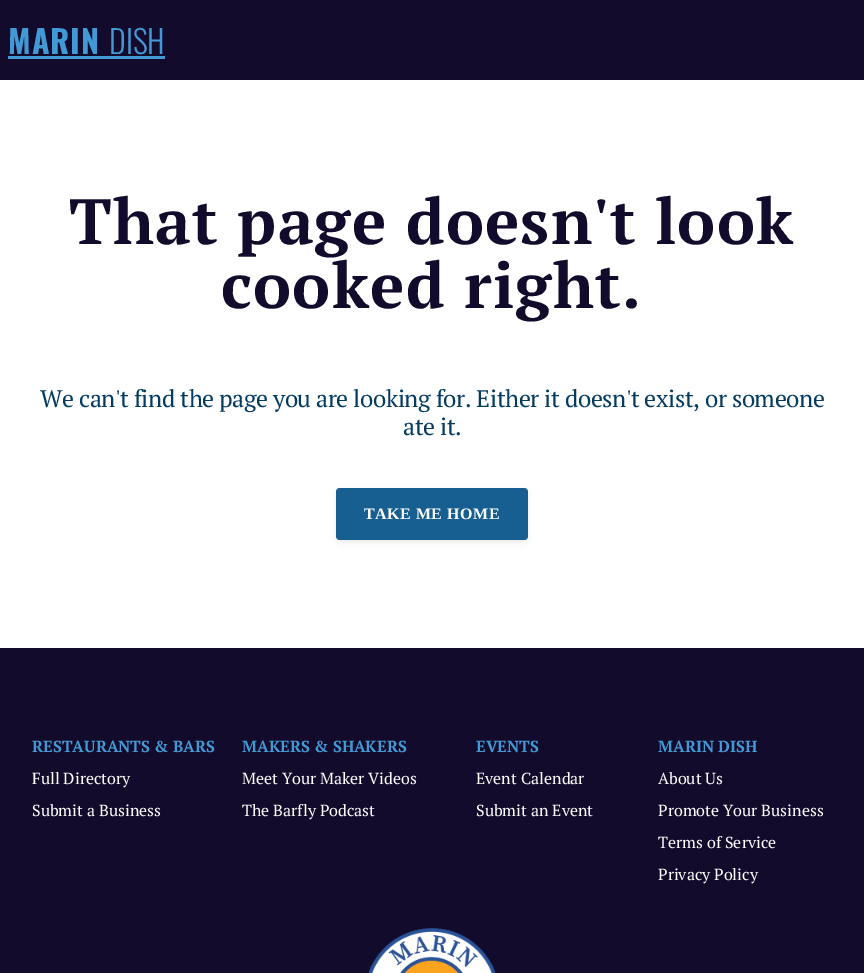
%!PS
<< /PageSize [864 973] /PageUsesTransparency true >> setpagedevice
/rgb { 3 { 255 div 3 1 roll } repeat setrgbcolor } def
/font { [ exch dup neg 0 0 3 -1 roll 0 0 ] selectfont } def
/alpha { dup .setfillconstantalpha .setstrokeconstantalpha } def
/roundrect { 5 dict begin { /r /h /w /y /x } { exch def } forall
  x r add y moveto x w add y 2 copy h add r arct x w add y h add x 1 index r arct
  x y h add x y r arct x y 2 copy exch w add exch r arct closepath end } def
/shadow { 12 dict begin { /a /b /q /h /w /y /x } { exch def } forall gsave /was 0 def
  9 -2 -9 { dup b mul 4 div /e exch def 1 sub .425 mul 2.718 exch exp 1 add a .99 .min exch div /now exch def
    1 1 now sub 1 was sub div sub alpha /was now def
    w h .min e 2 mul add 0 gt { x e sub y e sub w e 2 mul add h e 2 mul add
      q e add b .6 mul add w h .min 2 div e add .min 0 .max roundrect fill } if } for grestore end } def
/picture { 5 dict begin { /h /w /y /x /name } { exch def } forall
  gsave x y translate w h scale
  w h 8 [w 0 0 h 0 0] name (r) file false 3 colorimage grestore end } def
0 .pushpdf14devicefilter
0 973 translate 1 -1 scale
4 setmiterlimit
255 255 255 rgb
0 0 864 973 rectfill
19 11 44 rgb
0 0 864 80 rectfill
65 153 214 rgb
8 56 157 3 rectfill
0 0 0 rgb
341 496 182 42 0 5 0.2 shadow
23 95 145 rgb
336 488 192 52 4 roundrect fill
19 11 44 rgb
0 648 864 325 rectfill
(img/1.rgb) 368 928 128 45 picture
/Oswald-Bold 32 font
65 153 214 rgb
8 54 moveto 1 0 (MARIN) ashow
/Oswald-Light 32 font
109 54 moveto (DISH) show
/PTSerif-Bold 64 font
19 11 44 rgb
69 244 moveto 1.25 0 (That page doesn't look) ashow
221 308 moveto 1.25 0 (cooked right.) ashow
/PTSerif-Regular 24 font
4 59 97 rgb
40 407 moveto -0.48 0 (We can't find the page you are looking for. Either it doesn't exist, or someone) ashow
403 435 moveto -0.48 0 (ate it.) ashow
/LiberationSerif-Bold 16 font
255 255 255 rgb
364 519 moveto 0.5 0 (TAKE ME HOME) ashow
/PTSerif-Bold 16 font
65 153 214 rgb
32 752 moveto (RESTAURANTS & BARS) show
/PTSerif-Regular 16 font
255 255 255 rgb
32 784 moveto (Full Directory) show
32 816 moveto (Submit a Business) show
/PTSerif-Bold 16 font
65 153 214 rgb
242 752 moveto (MAKERS & SHAKERS) show
/PTSerif-Regular 16 font
255 255 255 rgb
242 784 moveto (Meet Your Maker Videos) show
242 816 moveto (The Barfly Podcast) show
/PTSerif-Bold 16 font
65 153 214 rgb
476 752 moveto (EVENTS) show
/PTSerif-Regular 16 font
255 255 255 rgb
476 784 moveto (Event Calendar) show
476 816 moveto (Submit an Event) show
/PTSerif-Bold 16 font
65 153 214 rgb
658 752 moveto (MARIN DISH) show
/PTSerif-Regular 16 font
255 255 255 rgb
[
  [(About Us) 658 784]
  [(Promote Your Business) 658 816]
  [(Terms of Service) 658 848]
  [(Privacy Policy) 658 880]
] { aload pop moveto show } forall
.poppdf14devicefilter showpage
